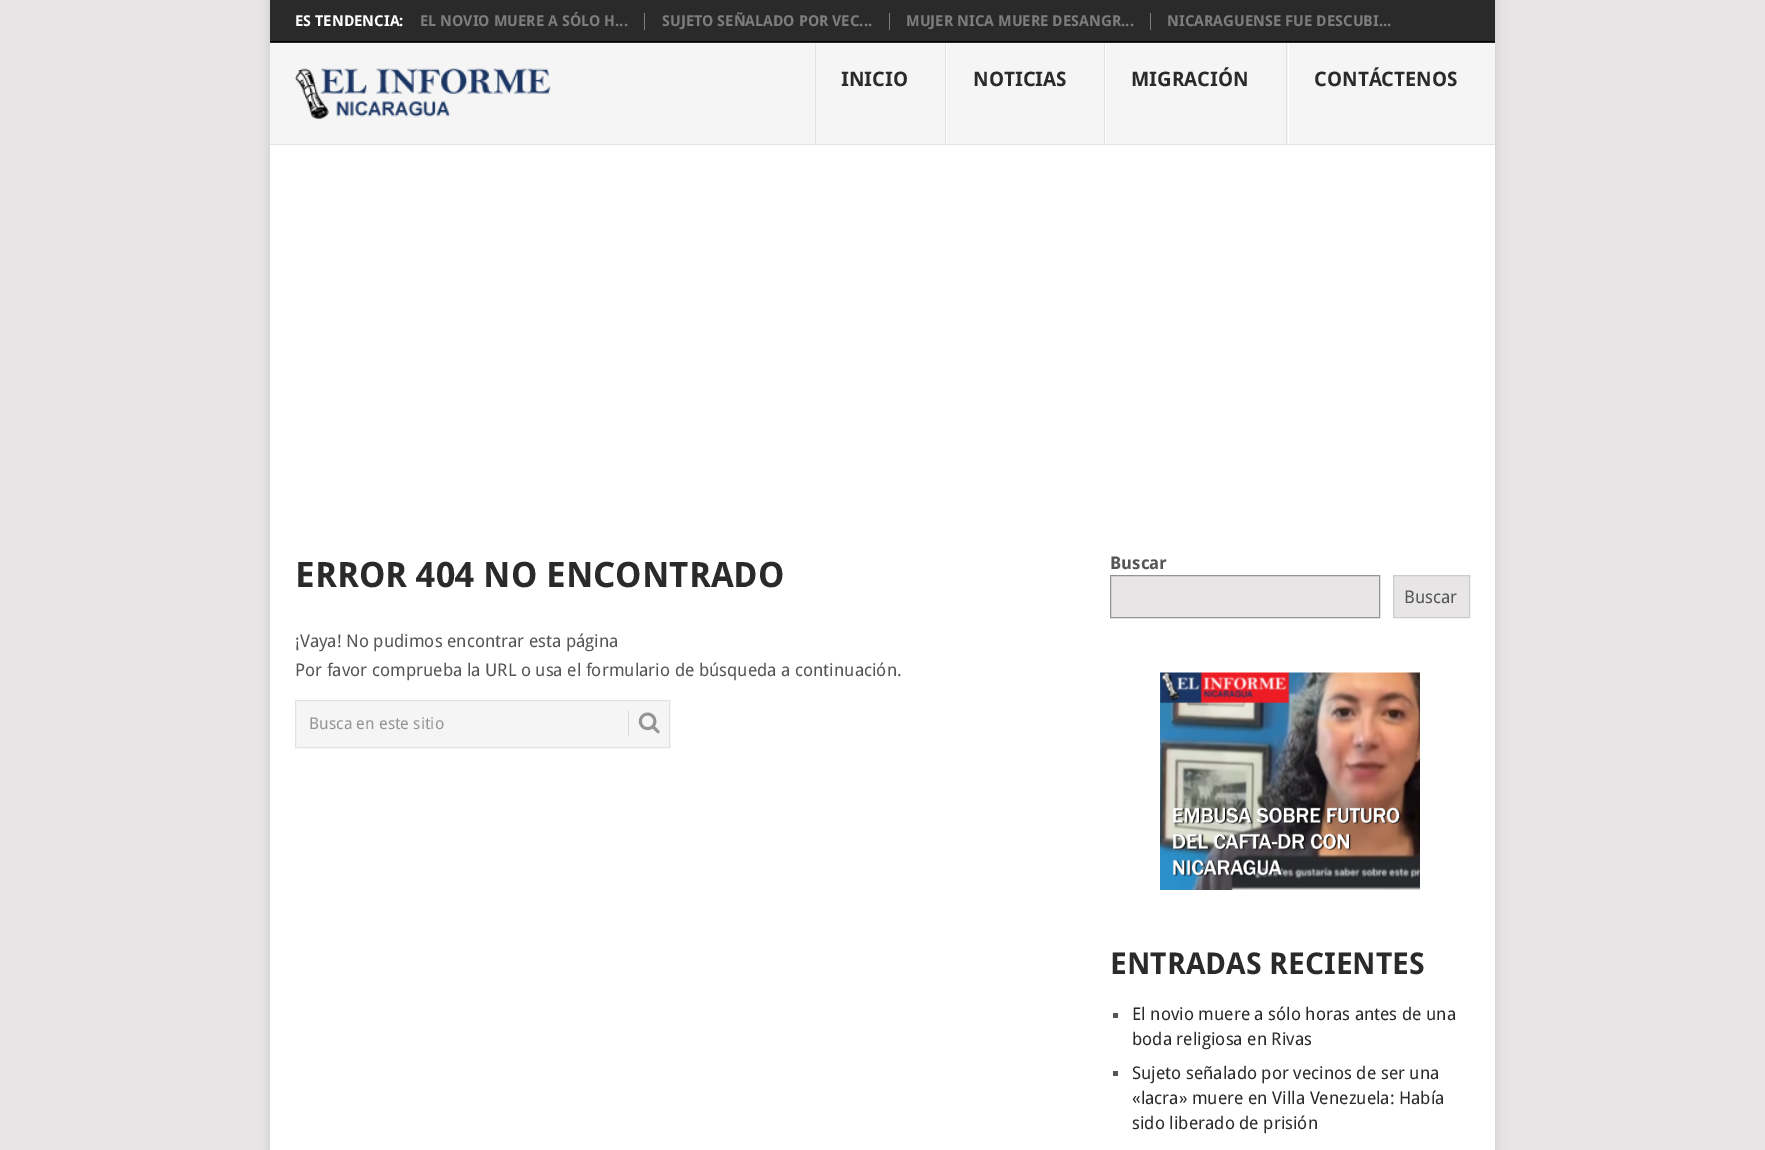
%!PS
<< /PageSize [1765 1150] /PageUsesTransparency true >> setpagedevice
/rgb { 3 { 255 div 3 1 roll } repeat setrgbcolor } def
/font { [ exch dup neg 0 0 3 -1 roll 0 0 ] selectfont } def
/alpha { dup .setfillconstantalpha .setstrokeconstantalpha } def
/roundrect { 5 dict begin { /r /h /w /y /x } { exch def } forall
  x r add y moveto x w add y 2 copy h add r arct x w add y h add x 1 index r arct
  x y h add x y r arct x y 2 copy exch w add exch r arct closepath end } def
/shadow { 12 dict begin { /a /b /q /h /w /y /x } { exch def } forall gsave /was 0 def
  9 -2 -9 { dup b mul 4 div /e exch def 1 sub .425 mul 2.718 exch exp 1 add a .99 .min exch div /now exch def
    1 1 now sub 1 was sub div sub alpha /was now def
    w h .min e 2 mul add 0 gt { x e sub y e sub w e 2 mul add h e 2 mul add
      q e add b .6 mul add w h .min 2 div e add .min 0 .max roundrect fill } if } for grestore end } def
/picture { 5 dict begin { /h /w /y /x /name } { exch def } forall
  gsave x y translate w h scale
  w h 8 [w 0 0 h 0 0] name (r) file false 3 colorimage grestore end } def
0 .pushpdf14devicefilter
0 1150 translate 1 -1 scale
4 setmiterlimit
231 229 230 rgb
0 0 1765 1150 rectfill
50 50 50 rgb
270 0 1225 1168 0 6 0.17 shadow
[
  [270 145 1225 1005 255 255 255]
  [270 0 1225 43 42 42 42]
  [270 41 1225 1 0 0 0]
  [644 13 1 17 125 125 125]
  [889 13 1 17 125 125 125]
  [1150 13 1 17 125 125 125]
  [270 43 1225 101 245 245 245]
] { aload pop rgb rectfill } forall
(img/1.rgb) 295 68 256 51 picture
[
  [945 43 1 102 226 226 226]
  [815 43 1 102 226 226 226]
  [1104 43 1 102 226 226 226]
  [946 43 1 102 255 255 255]
  [1286 43 1 102 226 226 226]
  [1105 43 1 102 255 255 255]
  [1288 43 1 102 255 255 255]
  [270 144 1225 1 226 226 226]
] { aload pop rgb rectfill } forall
245 245 245 rgb
295.5 700.5 moveto 669.5 700.5 lineto 669.5 747.5 lineto 295.5 747.5 lineto closepath gsave fill grestore
226 226 226 rgb
stroke
216 216 216 rgb
628 711 1 25 rectfill
(img/2.rgb) 638 712 22 22 picture
231 229 230 rgb
1110.5 575.5 moveto 1379.5 575.5 lineto 1379.5 617.5 lineto 1110.5 617.5 lineto closepath gsave fill grestore
148 148 148 rgb
stroke
231 229 230 rgb
1393.5 575.5 moveto 1469.5 575.5 lineto 1469.5 617.5 lineto 1393.5 617.5 lineto closepath gsave fill grestore
204 204 204 rgb
stroke
(img/3.rgb) 1160 672 260 218 picture
85 85 85 rgb
1113 1013 5 5 rectfill
1113 1071 5 5 rectfill
/DroidSans-Bold 15 font
255 255 255 rgb
295 26 moveto (ES TENDENCIA:) show
125 125 125 rgb
[
  [(EL NOVIO MUERE A SÓLO H...) 420 26]
  [(SUJETO SEÑALADO POR VEC...) 662 26]
  [(MUJER NICA MUERE DESANGR...) 906 26]
  [(NICARAGUENSE FUE DESCUBI...) 1167 26]
] { aload pop moveto show } forall
/DroidSans-Bold 20 font
42 42 42 rgb
[
  [(INICIO) 841 86]
  [(NOTICIAS) 973 86]
  [(MIGRACIÓN) 1131 86]
  [(CONTÁCTENOS) 1314 86]
] { aload pop moveto show } forall
/DroidSans-Bold 35 font
295 587 moveto (ERROR 404 NO ENCONTRADO) show
/DroidSans-Regular 17.5 font
85 85 85 rgb
295 647 moveto (¡Vaya! No pudimos encontrar esta página) show
295 676 moveto (Por favor comprueba la URL o usa el formulario de búsqueda a continuación.) show
/DroidSans-Regular 16.25 font
149 149 149 rgb
309 729 moveto (Busca en este sitio) show
/DroidSans-Bold 17.5 font
85 85 85 rgb
1110 569 moveto (Buscar) show
/DroidSans-Regular 17.5 font
1404 603 moveto (Buscar) show
/DroidSans-Bold 30 font
42 42 42 rgb
1110 974 moveto (ENTRADAS RECIENTES) show
/DroidSans-Regular 17.5 font
[
  [(El novio muere a sólo horas antes de una) 1132 1020]
  [(boda religiosa en Rivas) 1132 1045]
  [(Sujeto señalado por vecinos de ser una) 1132 1079]
  [(«lacra» muere en Villa Venezuela: Había) 1132 1104]
  [(sido liberado de prisión) 1132 1129]
] { aload pop moveto show } forall
.poppdf14devicefilter showpage
